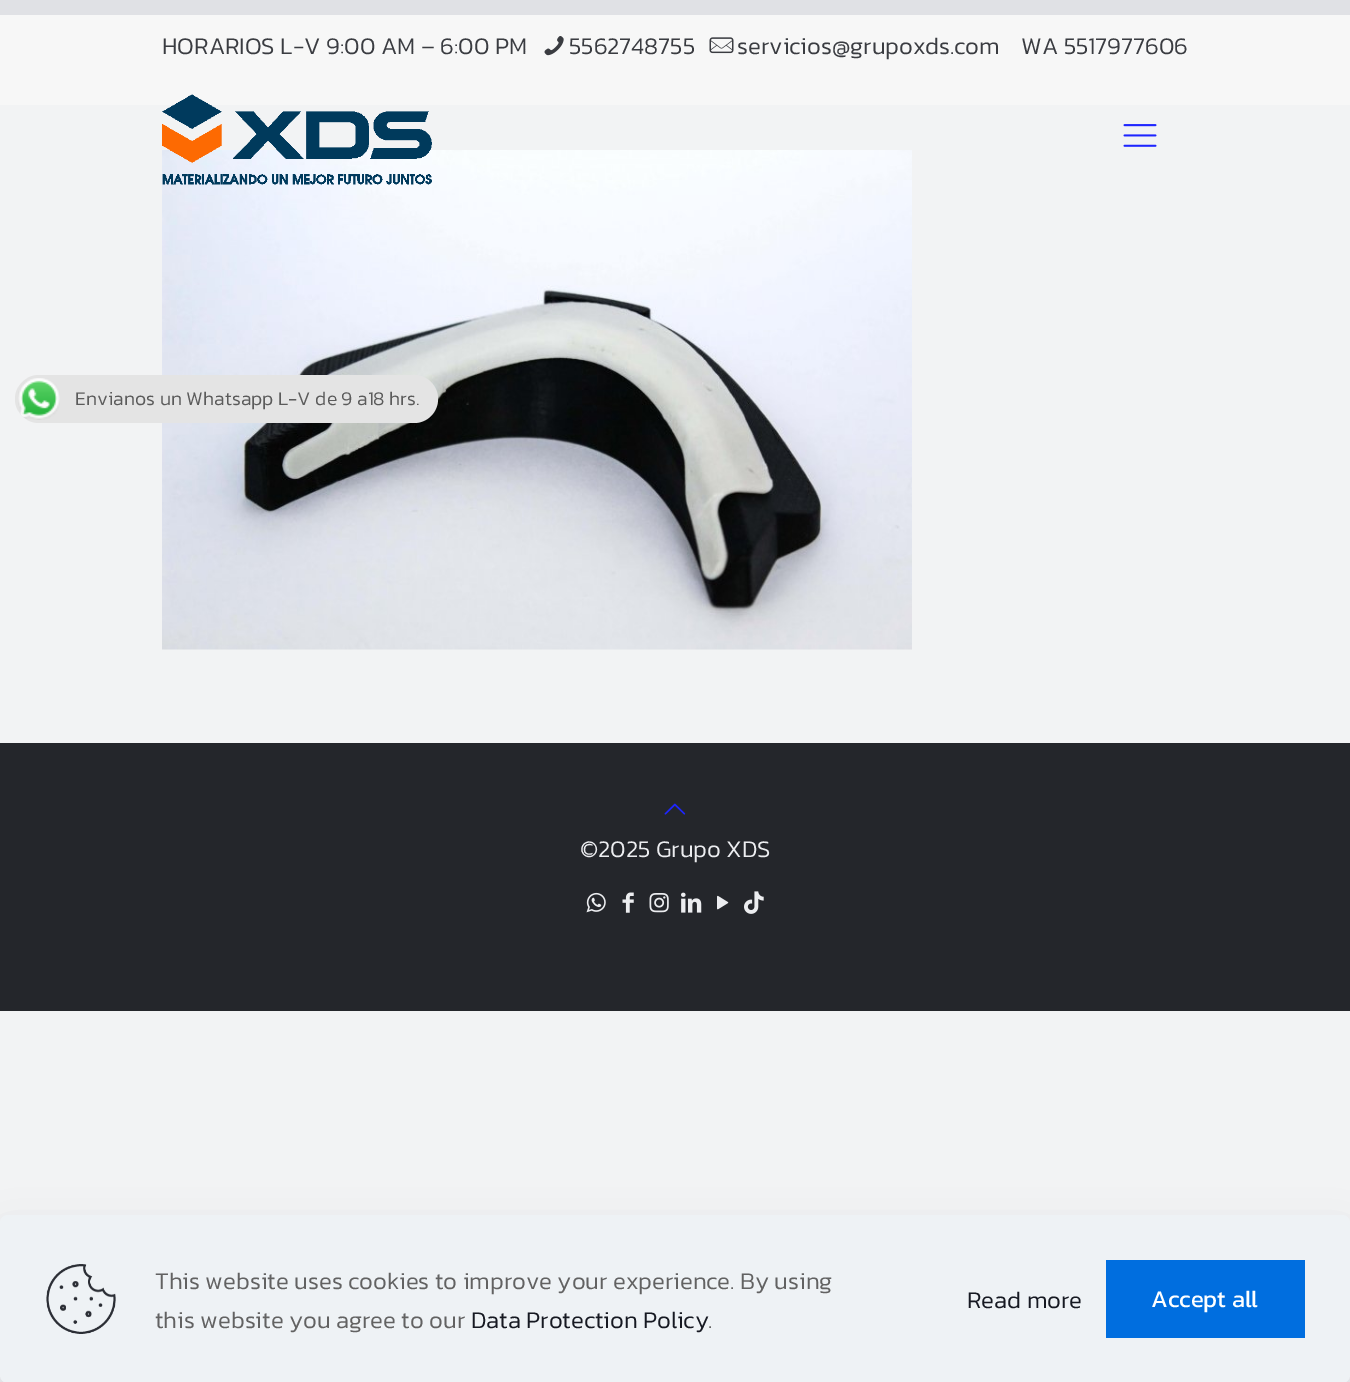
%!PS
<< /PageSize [1350 1382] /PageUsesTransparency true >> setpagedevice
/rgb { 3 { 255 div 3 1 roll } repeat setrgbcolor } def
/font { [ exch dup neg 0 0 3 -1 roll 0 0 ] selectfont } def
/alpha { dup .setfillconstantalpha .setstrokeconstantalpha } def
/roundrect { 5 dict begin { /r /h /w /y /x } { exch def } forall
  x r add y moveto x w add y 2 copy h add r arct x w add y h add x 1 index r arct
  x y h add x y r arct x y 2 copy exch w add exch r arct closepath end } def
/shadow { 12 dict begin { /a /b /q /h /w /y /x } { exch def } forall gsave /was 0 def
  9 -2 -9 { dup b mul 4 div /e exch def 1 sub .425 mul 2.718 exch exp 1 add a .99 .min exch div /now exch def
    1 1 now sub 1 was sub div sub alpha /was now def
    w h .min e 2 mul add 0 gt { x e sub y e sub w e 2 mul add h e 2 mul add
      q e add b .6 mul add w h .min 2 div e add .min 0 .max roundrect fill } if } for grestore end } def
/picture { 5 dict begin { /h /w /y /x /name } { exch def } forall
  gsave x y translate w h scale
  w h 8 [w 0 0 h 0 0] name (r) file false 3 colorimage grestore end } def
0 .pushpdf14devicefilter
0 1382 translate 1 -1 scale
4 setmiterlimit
242 243 244 rgb
0 0 1350 1382 rectfill
224 225 229 rgb
0 0 1350 15 rectfill
247 247 247 rgb
0 15 1350 90 rectfill
(img/1.rgb) 544 36 20 20 picture
(img/2.rgb) 709 37 25 17 picture
(img/5.rgb) 162 150 750 500 picture
(img/3.rgb) 162 94 270 91 picture
(img/4.rgb) 1123 124 34 23 picture
36 38 43 rgb
0 743 1350 268 rectfill
(img/6.rgb) 664 803 22 12 picture
(img/7.rgb) 586 892 20 21 picture
(img/8.rgb) 622 892 12 21 picture
(img/9.rgb) 649 893 20 20 picture
(img/10.rgb) 681 892 21 21 picture
(img/11.rgb) 717 895 12 15 picture
(img/12.rgb) 744 891 20 23 picture
228 228 228 rgb
15 375 423 48 24 roundrect fill
(img/13.rgb) 18 378 42 42 picture
1 7 39 rgb
0 1238 1350 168 8 22.5 0.13 shadow
238 242 245 rgb
0 1215 1350 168 8 roundrect fill
(img/14.rgb) 46 1264 70 70 picture
0 110 223 rgb
1106 1260 199 78 rectfill
/Kanit-Light 24 font
58 60 65 rgb
[
  [(HORARIOS L-V 9:00 AM – 6:00 PM) 162 54]
  [(5562748755) 569 54]
  [(servicios@grupoxds.com) 737 54]
  [(WA 5517977606) 1021 54]
] { aload pop moveto show } forall
236 237 240 rgb
580 857 moveto (©2025 Grupo XDS) show
/Kanit-Light 19.5 font
91 91 91 rgb
75 405 moveto (Envianos un Whatsapp L-V de 9 a18 hrs.) show
/Kanit-Light 24 font
98 98 98 rgb
155 1289 moveto (This website uses cookies to improve your experience. By using) show
155 1328 moveto (this website you agree to our) show
22 25 34 rgb
471 1328 moveto (Data Protection Policy) show
98 98 98 rgb
708 1328 moveto (.) show
22 25 34 rgb
967 1308 moveto (Read more) show
/Kanit-Regular 24 font
255 255 255 rgb
1151 1307 moveto (Accept all) show
.poppdf14devicefilter showpage
